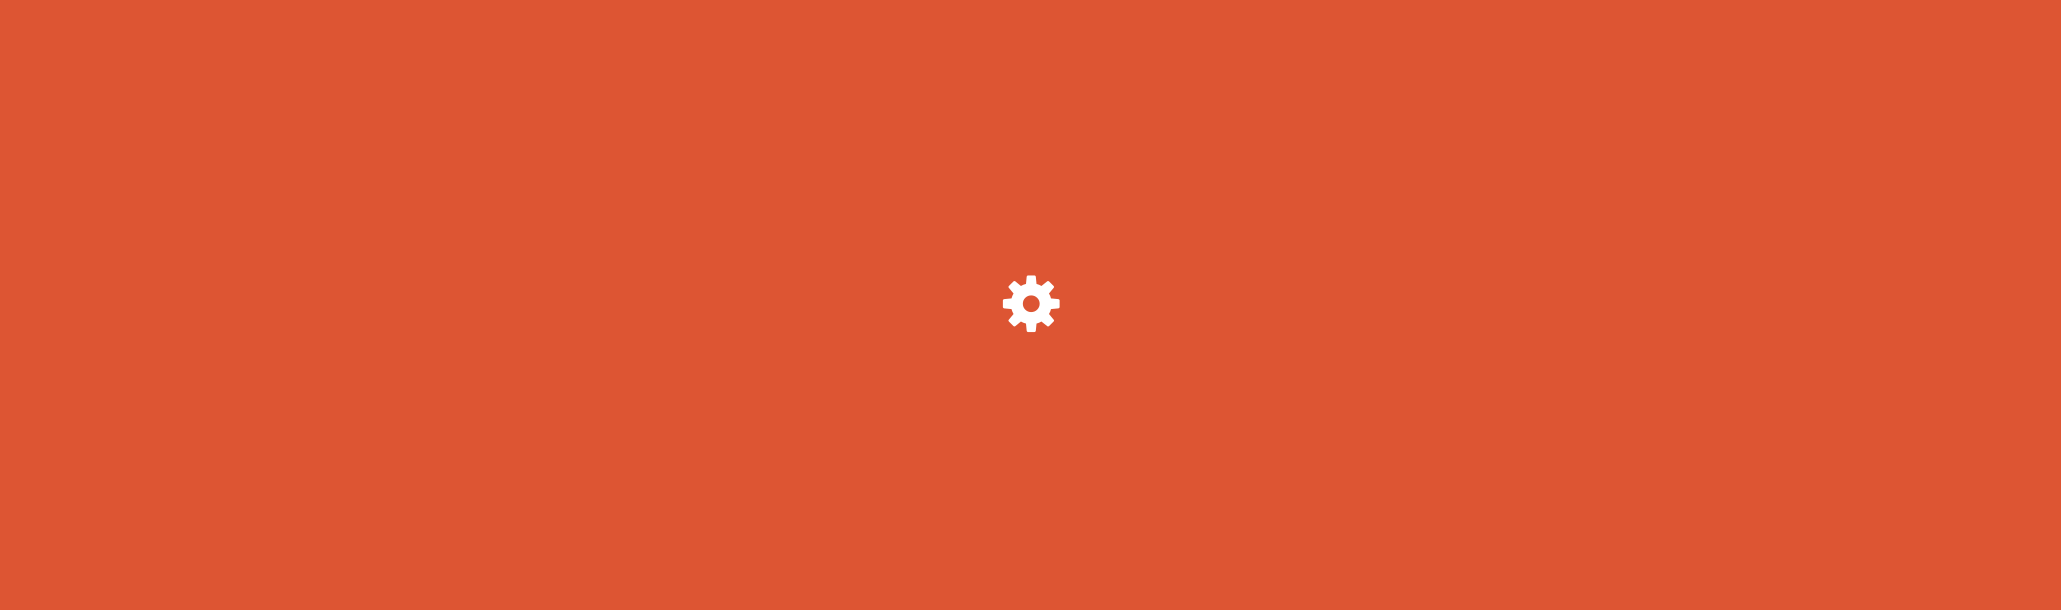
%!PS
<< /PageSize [2061 610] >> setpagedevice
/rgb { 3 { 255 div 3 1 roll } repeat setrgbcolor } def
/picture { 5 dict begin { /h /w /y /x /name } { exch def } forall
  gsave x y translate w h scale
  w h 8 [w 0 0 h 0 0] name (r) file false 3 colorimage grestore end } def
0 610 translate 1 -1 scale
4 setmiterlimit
221 85 51 rgb
0 0 2061 610 rectfill
(img/1.rgb) 1002 275 58 58 picture
showpage
